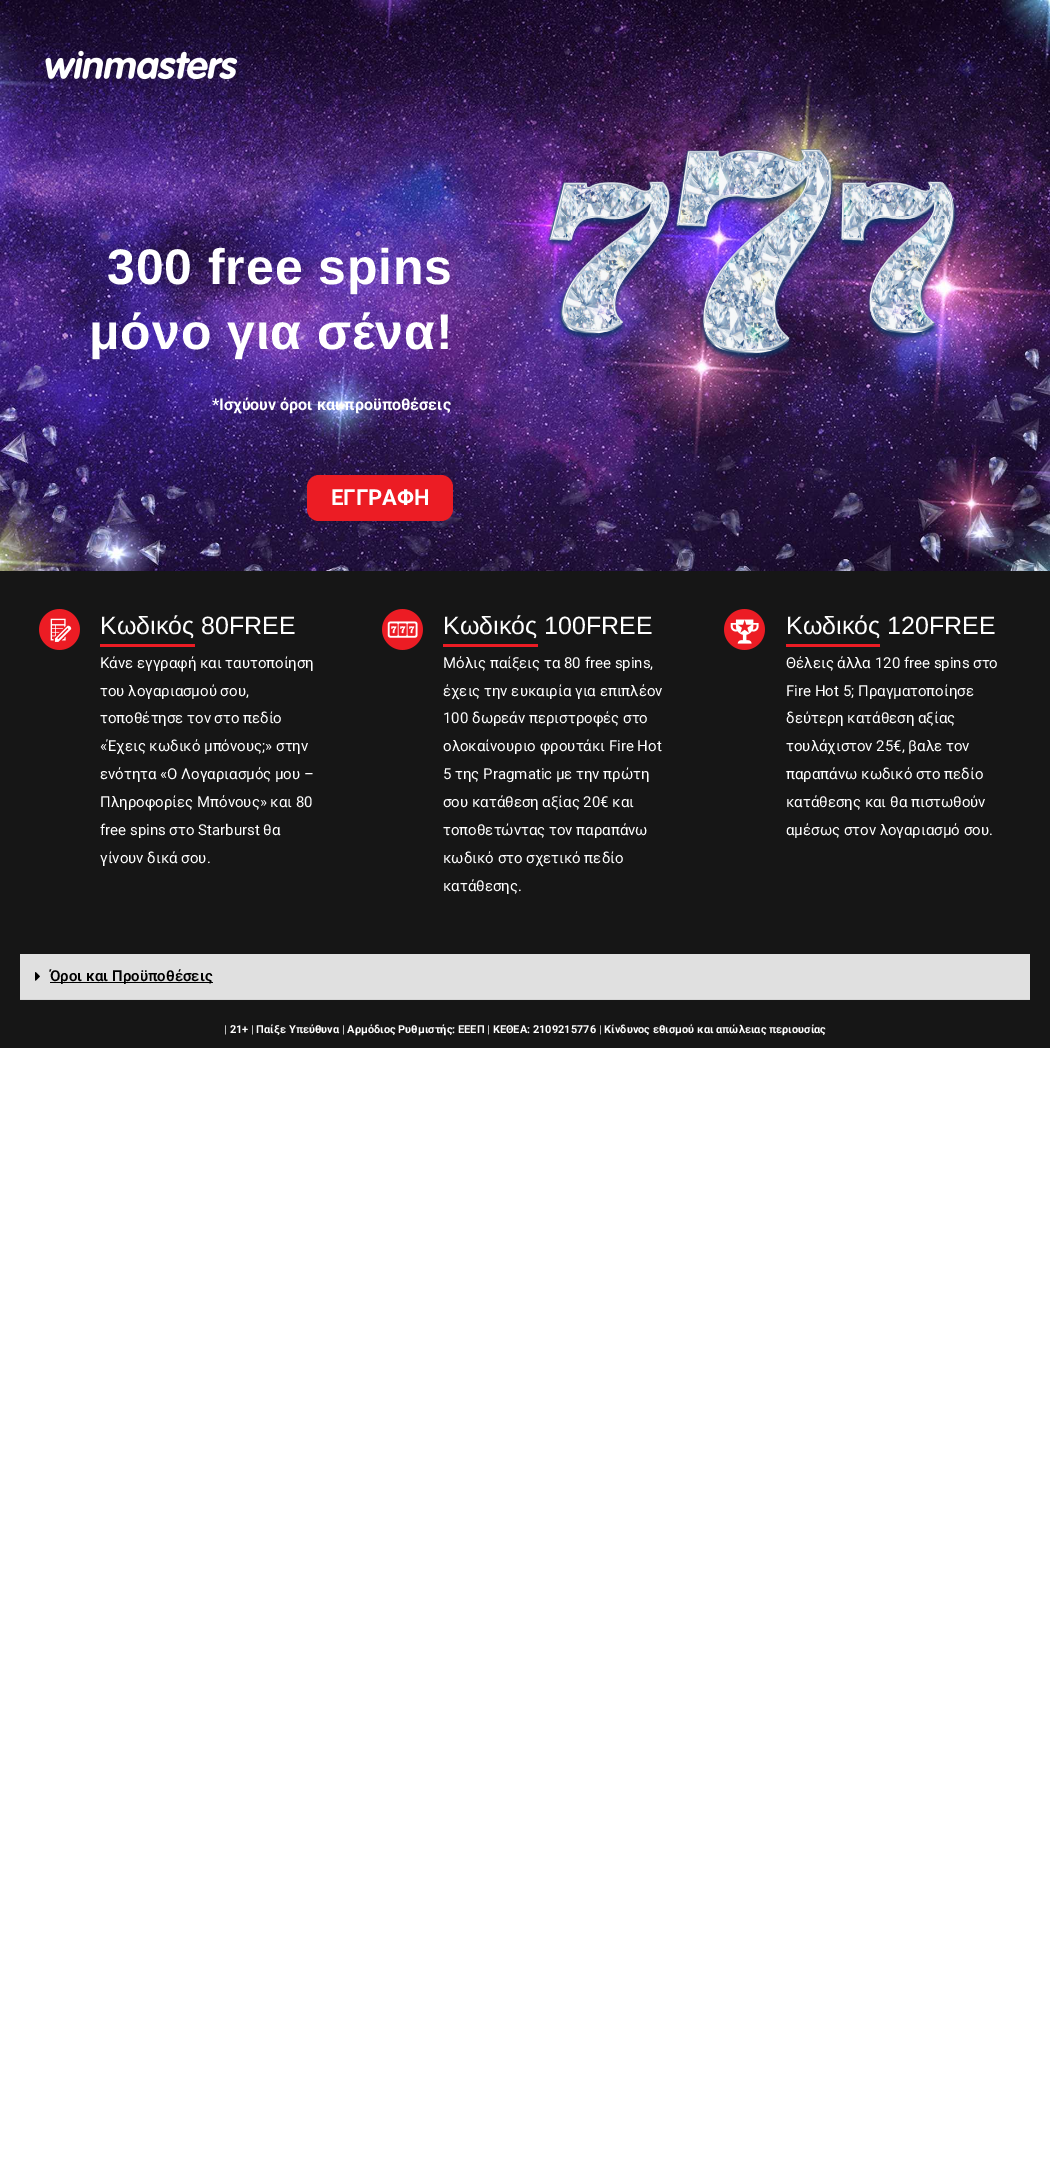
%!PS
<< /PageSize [1050 2161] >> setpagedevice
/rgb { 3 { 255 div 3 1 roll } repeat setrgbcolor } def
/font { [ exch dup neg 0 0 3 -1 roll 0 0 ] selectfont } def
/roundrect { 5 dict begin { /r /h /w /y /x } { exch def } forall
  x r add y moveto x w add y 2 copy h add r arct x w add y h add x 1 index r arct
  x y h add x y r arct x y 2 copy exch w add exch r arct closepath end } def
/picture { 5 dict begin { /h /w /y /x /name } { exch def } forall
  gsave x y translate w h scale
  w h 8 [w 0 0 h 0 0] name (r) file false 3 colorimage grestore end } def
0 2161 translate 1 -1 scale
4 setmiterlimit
255 255 255 rgb
0 0 1050 2161 rectfill
(img/1.rgb) 0 0 1050 571 picture
(img/2.rgb) 45 50 192 30 picture
236 28 36 rgb
307 475 146 46 12 roundrect fill
(img/3.rgb) 545 148 413 213 picture
22 22 22 rgb
0 571 1050 477 rectfill
(img/4.rgb) 39 609 41 41 picture
236 28 36 rgb
100 644 95 3 rectfill
(img/5.rgb) 382 609 41 41 picture
443 644 95 3 rectfill
(img/6.rgb) 724 609 41 41 picture
[
  [786 644 94 3 236 28 36]
  [20 954 1010 45 224 224 224]
  [20 999 1010 1 212 212 212]
] { aload pop rgb rectfill } forall
(img/7.rgb) 35 972 5 9 picture
0 0 0 rgb
50 982 163 1 rectfill
/LiberationSans-Bold 50 font
255 255 255 rgb
107 284 moveto 0.9 0 (300 free spins) ashow
89 349 moveto 0.9 0 (μόνο για σένα!) ashow
/Roboto-Bold 16 font
212 410 moveto (*Ισχύουν όροι και προϋποθέσεις) show
/Roboto-Bold 22 font
331 505 moveto (ΕΓΓΡΑΦΗ) show
/LiberationSans-Regular 25 font
100 634 moveto (Κωδικός 80FREE) show
/Roboto-Regular 15 font
[
  [(Κάνε εγγραφή και ταυτοποίηση) 100 668]
  [(του λογαριασμού σου,) 100 696]
  [(τοποθέτησε τον στο πεδίο) 100 723]
  [(«Έχεις κωδικό μπόνους;» στην) 100 751]
  [(ενότητα «Ο Λογαριασμός μου –) 100 779]
  [(Πληροφορίες Μπόνους» και 80) 100 807]
  [(free spins στο Starburst θα) 100 835]
  [(γίνουν δικά σου.) 100 863]
] { aload pop moveto show } forall
/LiberationSans-Regular 25 font
443 634 moveto (Κωδικός 100FREE) show
/Roboto-Regular 15 font
[
  [(Μόλις παίξεις τα 80 free spins,) 443 668]
  [(έχεις την ευκαιρία για επιπλέον) 443 696]
  [(100 δωρεάν περιστροφές στο) 443 723]
  [(ολοκαίνουριο φρουτάκι Fire Hot) 443 751]
  [(5 της Pragmatic με την πρώτη) 443 779]
  [(σου κατάθεση αξίας 20€ και) 443 807]
  [(τοποθετώντας τον παραπάνω) 443 835]
  [(κωδικό στο σχετικό πεδίο) 443 863]
  [(κατάθεσης.) 443 891]
] { aload pop moveto show } forall
/LiberationSans-Regular 25 font
786 634 moveto (Κωδικός 120FREE) show
/Roboto-Regular 15 font
[
  [(Θέλεις άλλα 120 free spins στο) 786 668]
  [(Fire Hot 5; Πραγματοποίησε) 786 696]
  [(δεύτερη κατάθεση αξίας) 786 723]
  [(τουλάχιστον 25€, βαλε τον) 786 751]
  [(παραπάνω κωδικό στο πεδίο) 786 779]
  [(κατάθεσης και θα πιστωθούν) 786 807]
  [(αμέσως στον λογαριασμό σου.) 786 835]
] { aload pop moveto show } forall
/Roboto-SemiBold 15 font
0 0 0 rgb
50 981 moveto (Όροι και Προϋποθέσεις) show
/Roboto-Bold 11 font
255 255 255 rgb
224 1033 moveto (| 21+ | Παίξε Υπεύθυνα | Αρμόδιος Ρυθμιστής: ΕΕΕΠ | ΚΕΘΕΑ: 2109215776 | Κίνδυνος εθισμού και απώλειας περιουσίας) show
showpage
